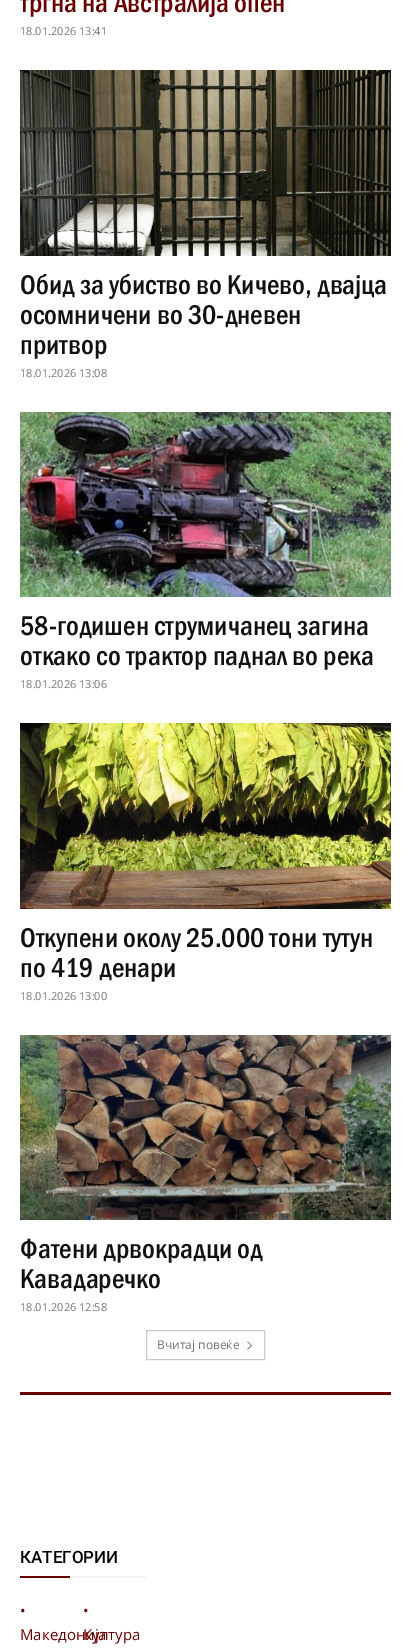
%!PS
<< /PageSize [411 1651] >> setpagedevice
/rgb { 3 { 255 div 3 1 roll } repeat setrgbcolor } def
/font { [ exch dup neg 0 0 3 -1 roll 0 0 ] selectfont } def
/picture { 5 dict begin { /h /w /y /x /name } { exch def } forall
  gsave x y translate w h scale
  w h 8 [w 0 0 h 0 0] name (r) file false 3 colorimage grestore end } def
0 1651 translate 1 -1 scale
4 setmiterlimit
255 255 255 rgb
0 0 411 1651 rectfill
(img/1.rgb) 20 70 371 186 picture
(img/2.rgb) 20 412 371 185 picture
(img/3.rgb) 20 723 371 186 picture
(img/4.rgb) 20 1035 371 185 picture
201 201 201 rgb
146.5 1330.5 118 29 rectstroke
(img/5.rgb) 247 1341 6 9 picture
[
  [20 1392 371 3 104 0 0]
  [20 1576 50 2 104 0 0]
  [70 1576 76 2 245 245 245]
] { aload pop rgb rectfill } forall
/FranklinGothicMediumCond-Medium 28 font
104 0 0 rgb
20 12 moveto (тргна на Австралија опен) show
/OpenSans-Regular 11 font
118 118 118 rgb
20 35 moveto (18.01.2026 13:41) show
/FranklinGothicMediumCond-Medium 28 font
17 17 17 rgb
[
  [(Обид за убиство во Кичево, двајца) 20 294]
  [(осомничени во 30-дневен) 20 324]
  [(притвор) 20 354]
] { aload pop moveto show } forall
/OpenSans-Regular 11 font
118 118 118 rgb
20 377 moveto (18.01.2026 13:08) show
/FranklinGothicMediumCond-Medium 28 font
17 17 17 rgb
20 635 moveto (58-годишен струмичанец загина) show
20 665 moveto (откако со трактор паднал во река) show
/OpenSans-Regular 11 font
118 118 118 rgb
20 688 moveto (18.01.2026 13:06) show
/FranklinGothicMediumCond-Medium 28 font
17 17 17 rgb
20 947 moveto (Откупени околу 25.000 тони тутун) show
20 977 moveto (по 419 денари) show
/OpenSans-Regular 11 font
118 118 118 rgb
20 1000 moveto (18.01.2026 13:00) show
/FranklinGothicMediumCond-Medium 28 font
17 17 17 rgb
20 1258 moveto (Фатени дрвокрадци од) show
20 1288 moveto (Кавадаречко) show
/OpenSans-Regular 11 font
118 118 118 rgb
20 1311 moveto (18.01.2026 12:58) show
/OpenSans-Regular 12 font
157 1349 moveto (Вчитај повеќе) show
/Roboto-Medium 17 font
0 0 0 rgb
20 1563 moveto (КАТЕГОРИИ) show
/OpenSans-Regular 15 font
104 0 0 rgb
[
  [(•) 20 1616]
  [(Македонија) 20 1640]
  [(•) 83 1616]
  [(Култура) 83 1640]
] { aload pop moveto show } forall
showpage
